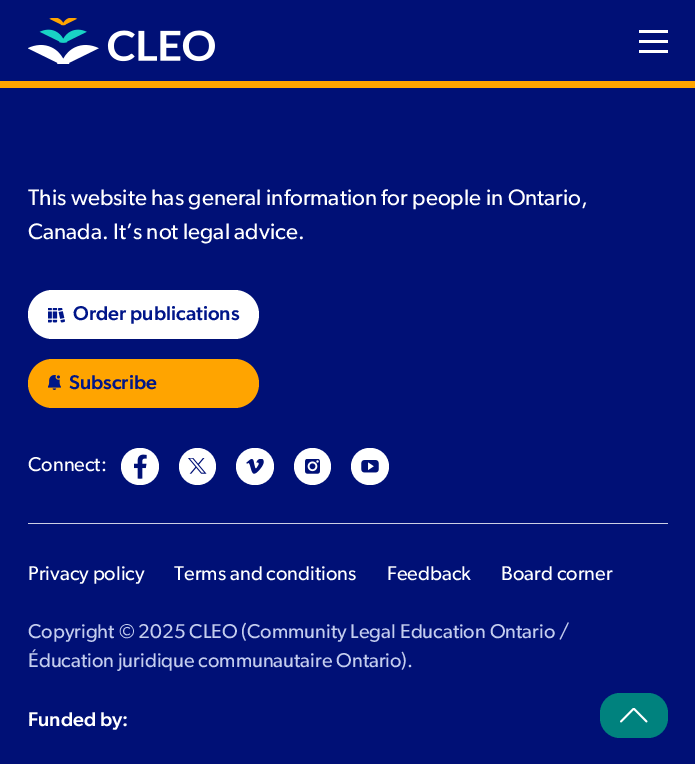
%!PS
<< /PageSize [695 764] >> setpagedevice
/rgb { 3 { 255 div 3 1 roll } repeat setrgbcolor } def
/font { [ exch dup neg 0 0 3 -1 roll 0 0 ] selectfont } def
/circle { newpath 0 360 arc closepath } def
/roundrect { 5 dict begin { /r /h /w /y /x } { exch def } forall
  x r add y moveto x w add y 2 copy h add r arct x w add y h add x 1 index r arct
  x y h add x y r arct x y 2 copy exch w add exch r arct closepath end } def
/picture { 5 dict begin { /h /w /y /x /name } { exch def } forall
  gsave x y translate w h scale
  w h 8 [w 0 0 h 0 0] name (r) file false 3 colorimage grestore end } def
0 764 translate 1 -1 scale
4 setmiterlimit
0 16 118 rgb
0 0 695 764 rectfill
255 164 0 rgb
0 81 695 7 rectfill
(img/1.rgb) 28 18 187 46 picture
[
  [639 30 29 3 255 255 255]
  [639 40 29 3 255 255 255]
  [639 50 29 3 255 255 255]
] { aload pop rgb rectfill } forall
28 290 231 49 24.5 roundrect fill
(img/2.rgb) 48 308 17 15 picture
255 164 0 rgb
28 359 231 49 24.5 roundrect fill
(img/3.rgb) 48 375 13 15 picture
255 255 255 rgb
121 448 38 37 18.5 roundrect fill
(img/4.rgb) 134 454 13 25 picture
197.5 466.5 18.5 circle fill
(img/5.rgb) 188 458 19 16 picture
236 448 38 37 18.5 roundrect fill
(img/6.rgb) 246 459 18 15 picture
312.5 466.5 18.5 circle fill
(img/7.rgb) 305 459 15 15 picture
351 448 38 37 18.5 roundrect fill
(img/8.rgb) 361 460 18 13 picture
204 207 228 rgb
28 523 640 1 rectfill
0 130 126 rgb
600 693 68 45 20 roundrect fill
(img/9.rgb) 620 708 28 15 picture
/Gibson-Regular 22.5 font
255 255 255 rgb
28 205 moveto (This website has general information for people in Ontario,) show
28 239 moveto (Canada. It’s not legal advice.) show
/Gibson-Medium 20 font
0 22 137 rgb
73 320 moveto (Order publications) show
69 389 moveto (Subscribe) show
/Gibson-Regular 20 font
255 255 255 rgb
[
  [(Connect:) 28 471]
  [(Privacy policy) 28 580]
  [(Terms and conditions) 174 580]
  [(Feedback) 387 580]
  [(Board corner) 501 580]
] { aload pop moveto show } forall
196 205 238 rgb
28 638 moveto (Copyright © 2025 CLEO \(Community Legal Education Ontario /) show
28 667 moveto (Éducation juridique communautaire Ontario\).) show
/Gibson-Medium 20 font
255 255 255 rgb
28 726 moveto (Funded by:) show
showpage
